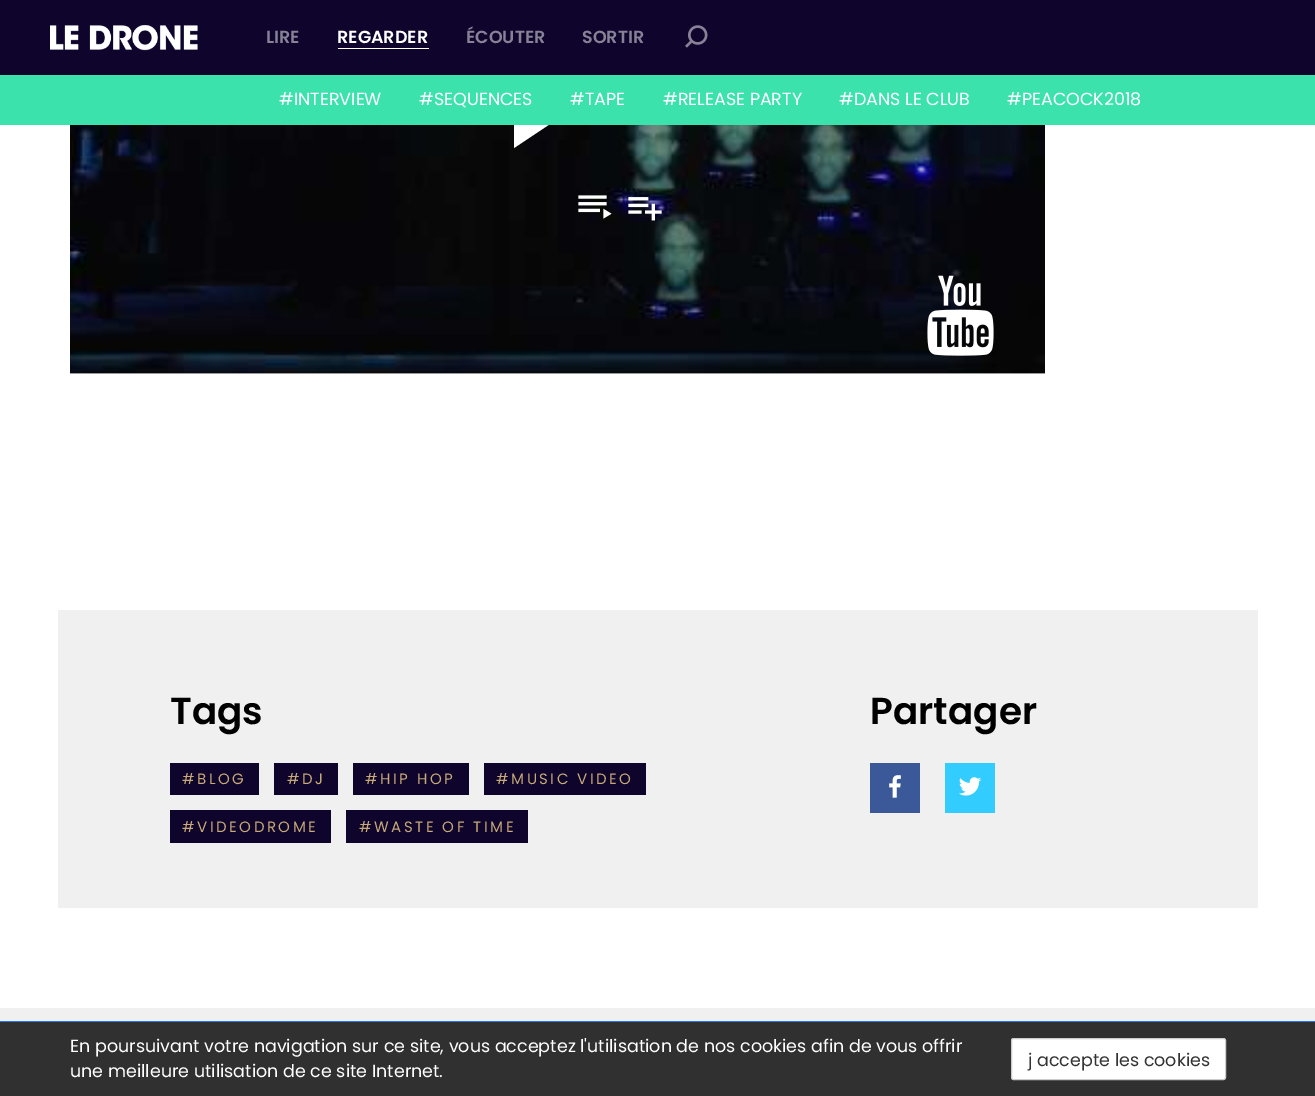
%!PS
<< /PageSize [1315 1096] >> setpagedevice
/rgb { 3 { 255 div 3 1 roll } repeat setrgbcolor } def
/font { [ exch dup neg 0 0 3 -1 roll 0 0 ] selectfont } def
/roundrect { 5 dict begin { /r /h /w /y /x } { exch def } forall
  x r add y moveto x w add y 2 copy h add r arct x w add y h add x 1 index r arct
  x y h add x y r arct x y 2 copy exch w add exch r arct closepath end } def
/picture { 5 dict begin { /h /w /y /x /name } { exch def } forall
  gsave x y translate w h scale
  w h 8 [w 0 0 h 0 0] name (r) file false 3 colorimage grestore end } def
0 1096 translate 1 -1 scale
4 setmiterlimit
255 255 255 rgb
0 0 1315 1096 rectfill
204 204 204 rgb
70 373 975 1 rectfill
(img/3.rgb) 70 125 975 249 picture
255 255 255 rgb
532 43 moveto 585 78 lineto 532 113 lineto closepath 514 8 moveto 514 148 lineto 619 78 lineto closepath fill
14 4 44 rgb
0 0 1315 75 rectfill
(img/1.rgb) 50 25 148 26 picture
(img/2.rgb) 685 25 23 23 picture
255 255 255 rgb
338 48 91 1 rectfill
60 226 172 rgb
0 75 1315 50 rectfill
(img/4.rgb) 578 195 34 24 picture
(img/5.rgb) 628 197 34 24 picture
(img/6.rgb) 927 275 67 81 picture
[
  [58 610 1200 298 240 240 240]
  [170 763 89 32 14 4 44]
  [274 763 64 32 14 4 44]
  [353 763 116 32 14 4 44]
  [484 763 162 32 14 4 44]
  [170 810 161 33 14 4 44]
  [346 810 182 33 14 4 44]
  [870 763 50 50 59 89 152]
] { aload pop rgb rectfill } forall
(img/7.rgb) 889 775 12 23 picture
51 204 255 rgb
945 763 50 50 rectfill
(img/8.rgb) 959 777 23 19 picture
[
  [0 1008 1315 13 240 240 240]
  [0 1022 1315 74 48 48 48]
  [0 1021 1315 1 32 120 252]
] { aload pop rgb rectfill } forall
255 255 255 rgb
1011.5 1038.5 214 41 2 roundrect gsave fill grestore
204 204 204 rgb
stroke
/Poppins-SemiBold 17.5 font
135 130 150 rgb
266 43 moveto (LIRE) show
466 43 moveto (ÉCOUTER) show
255 255 255 rgb
337 43 moveto (REGARDER) show
/Poppins-Regular 17.5 font
[
  [(#INTERVIEW) 279 105]
  [(#SEQUENCES) 419 105]
  [(#TAPE) 570 105]
  [(#RELEASE PARTY) 663 105]
  [(#DANS LE CLUB) 839 105]
  [(#PEACOCK2018) 1007 105]
] { aload pop moveto show } forall
/Poppins-SemiBold 17.5 font
135 130 150 rgb
582 43 moveto (SORTIR) show
/Poppins-SemiBold 37.5 font
0 0 0 rgb
170 724 moveto (Tags) show
/Poppins-Regular 15 font
200 170 120 rgb
182 784 moveto 2.5 0 (#BLOG) ashow
287 784 moveto 2.5 0 (#DJ) ashow
365 784 moveto 2.5 0 (#HIP HOP) ashow
496 784 moveto 2.5 0 (#MUSIC VIDEO) ashow
182 832 moveto 2.5 0 (#VIDEODROME) ashow
359 832 moveto 2.5 0 (#WASTE OF TIME) ashow
/Poppins-SemiBold 37.5 font
0 0 0 rgb
870 724 moveto (Partager) show
/Poppins-Regular 17.5 font
255 255 255 rgb
70 1052 moveto (En poursuivant votre navigation sur ce site, vous acceptez l'utilisation de nos cookies afin de vous offrir) show
70 1077 moveto (une meilleure utilisation de ce site Internet.) show
51 51 51 rgb
1028 1066 moveto (j accepte les cookies) show
showpage
